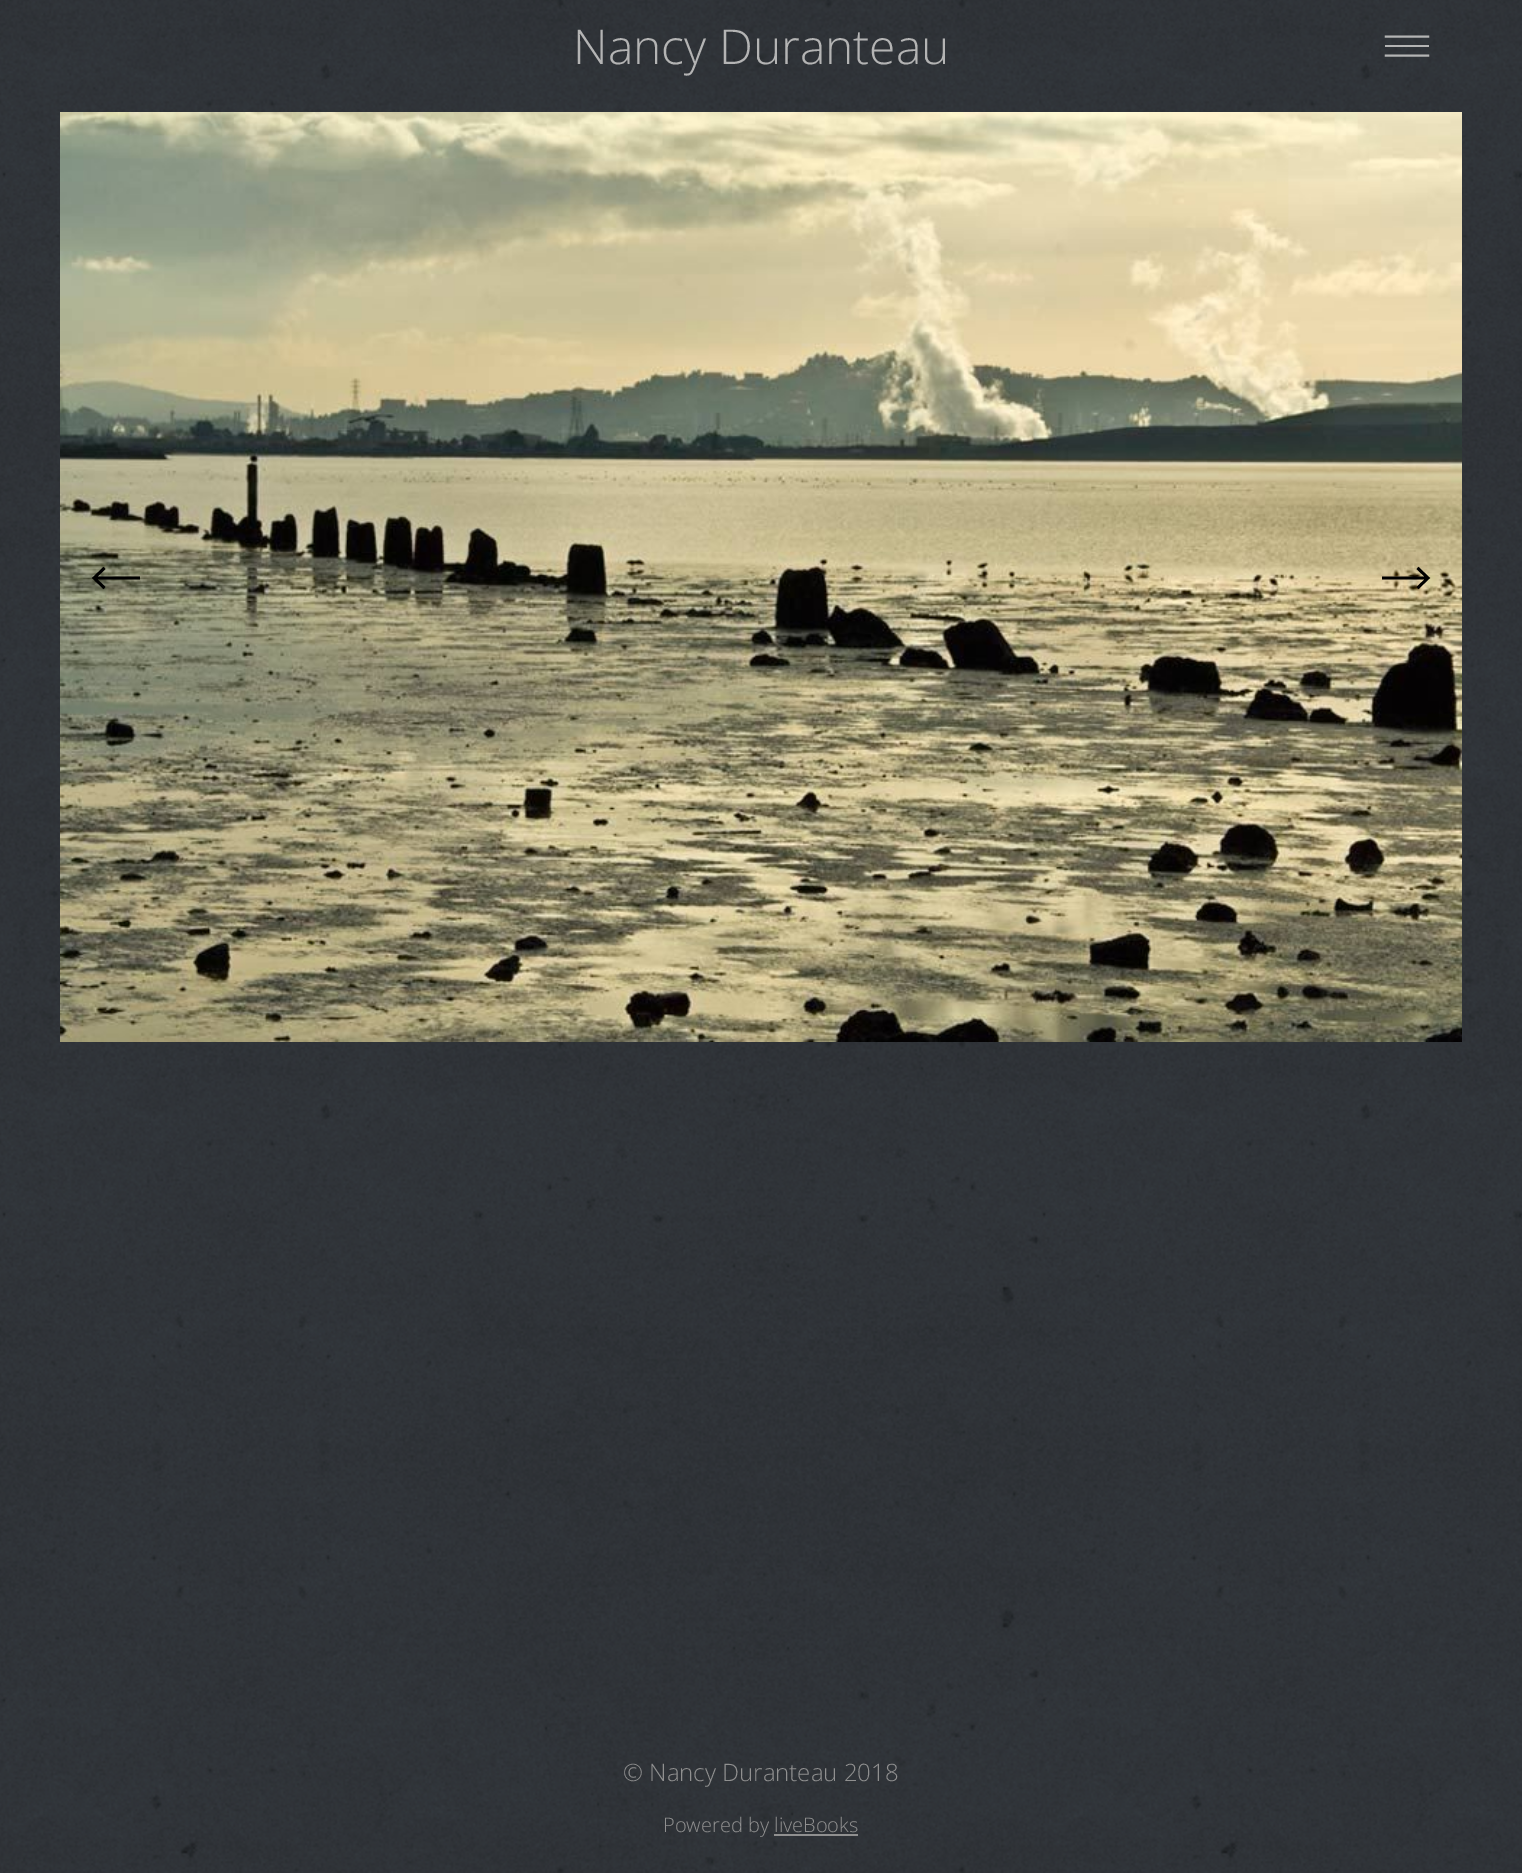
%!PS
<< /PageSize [1522 1873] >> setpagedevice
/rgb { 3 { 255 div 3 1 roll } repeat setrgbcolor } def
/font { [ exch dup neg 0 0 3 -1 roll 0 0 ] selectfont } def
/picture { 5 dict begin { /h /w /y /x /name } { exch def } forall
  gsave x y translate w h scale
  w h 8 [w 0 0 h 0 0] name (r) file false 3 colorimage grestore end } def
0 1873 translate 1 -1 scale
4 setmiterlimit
255 255 255 rgb
0 0 1522 1873 rectfill
(img/1.rgb) 0 0 1522 1873 picture
180 180 180 rgb
2.1 setlinewidth
2 setlinecap
1386 36.5 moveto 1428 36.5 lineto stroke
1385 45 44 2 rectfill
1386 55.5 moveto 1428 55.5 lineto stroke
(img/2.rgb) 60 112 1402 930 picture
0 0 0 rgb
2.8 setlinewidth
0 setlinecap
104.5 568 moveto 94 578 lineto 104.5 588 lineto 94 578 moveto 140 578 lineto stroke
1417.5 568 moveto 1428 578 lineto 1417.5 588 lineto 1428 578 moveto 1382 578 lineto stroke
144 144 144 rgb
774 1834 84 2 rectfill
/OpenSans-Light 48 font
180 180 180 rgb
573 64 moveto (Nancy Duranteau) show
/OpenSans-Light 24 font
144 144 144 rgb
623 1781 moveto (© Nancy Duranteau 2018) show
/OpenSans-Light 20 font
663 1832 moveto (Powered by liveBooks) show
showpage
